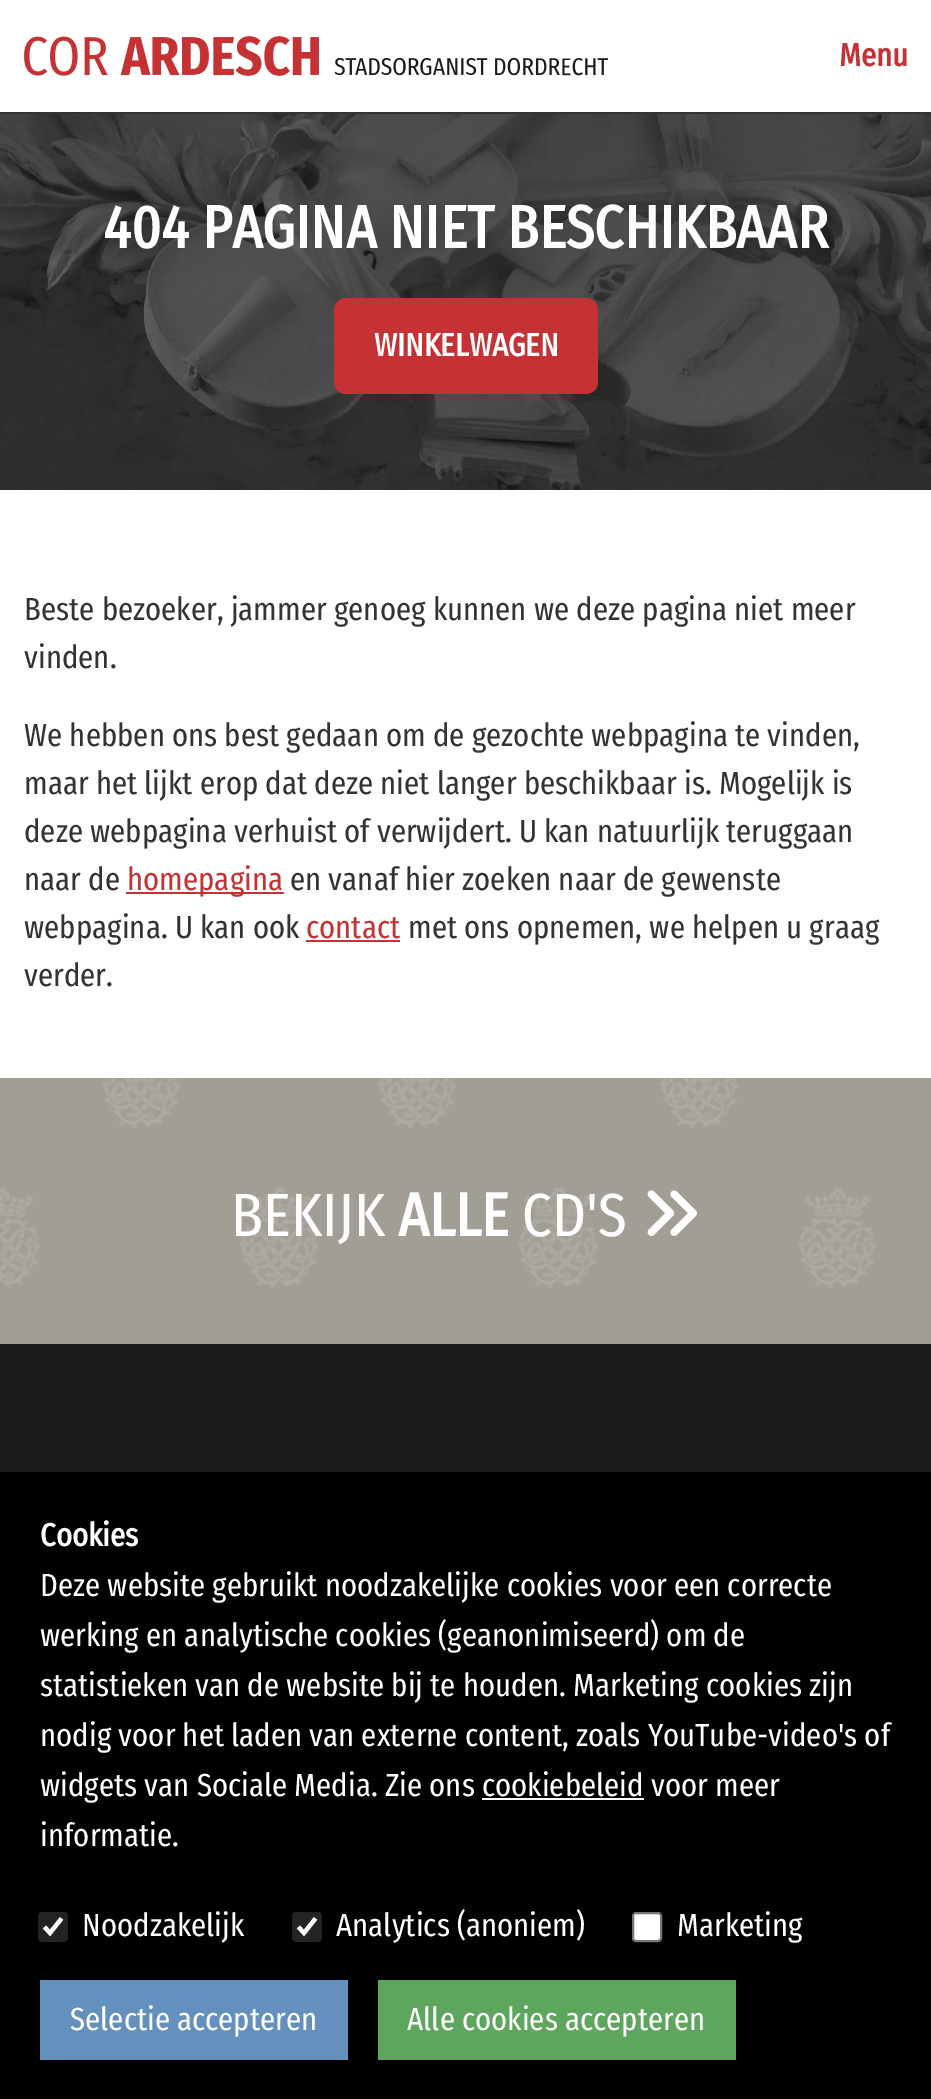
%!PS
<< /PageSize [931 2099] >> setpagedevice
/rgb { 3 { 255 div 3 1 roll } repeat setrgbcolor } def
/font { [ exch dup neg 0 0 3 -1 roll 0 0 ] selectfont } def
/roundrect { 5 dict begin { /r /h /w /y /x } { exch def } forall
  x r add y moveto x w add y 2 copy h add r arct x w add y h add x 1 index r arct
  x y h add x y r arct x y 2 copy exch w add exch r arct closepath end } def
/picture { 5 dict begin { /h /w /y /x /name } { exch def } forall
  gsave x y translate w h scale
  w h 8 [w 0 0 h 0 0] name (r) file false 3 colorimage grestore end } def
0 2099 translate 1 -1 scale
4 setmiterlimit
255 255 255 rgb
0 0 931 2099 rectfill
51 51 51 rgb
0 112 931 2 rectfill
(img/1.rgb) 24 36 584 40 picture
(img/2.rgb) 0 114 931 376 picture
196 50 53 rgb
334 298 264 96 12 roundrect fill
[
  [126 892 158 2 196 50 53]
  [306 940 94 2 196 50 53]
  [0 1078 931 266 162 158 149]
] { aload pop rgb rectfill } forall
(img/3.rgb) 0 1078 876 210 picture
(img/4.rgb) 647 1190 50 46 picture
[
  [0 1344 931 128 26 26 26]
  [0 1472 931 627 0 0 0]
  [482 1798 162 2 255 255 255]
] { aload pop rgb rectfill } forall
35 35 35 rgb
38 1912 30 30 4 roundrect fill
255 255 255 rgb
4.2 setlinewidth
44.5 1927 moveto 50 1933 lineto 61.5 1918.5 lineto stroke
35 35 35 rgb
292 1912 30 30 4 roundrect fill
255 255 255 rgb
298.5 1927 moveto 304 1933 lineto 315.5 1918.5 lineto stroke
633 1913 28 28 3 roundrect gsave fill grestore
118 118 118 rgb
2 setlinewidth
stroke
99 144 189 rgb
40 1980 308 80 rectfill
94 165 94 rgb
378 1980 358 80 rectfill
/FiraSansCondensed-Bold 32 font
196 50 53 rgb
839 66 moveto (Menu) show
/FiraSansCondensed-Bold 60 font
255 255 255 rgb
103 248 moveto (404 PAGINA NIET BESCHIKBAAR) show
/FiraSansCondensed-Bold 32 font
374 356 moveto (WINKELWAGEN) show
/FiraSansCondensed-Regular 32 font
51 51 51 rgb
[
  [(Beste bezoeker, jammer genoeg kunnen we deze pagina niet meer) 24 620]
  [(vinden.) 24 668]
  [(We hebben ons best gedaan om de gezochte webpagina te vinden,) 24 746]
  [(maar het lijkt erop dat deze niet langer beschikbaar is. Mogelijk is) 24 794]
  [(deze webpagina verhuist of verwijdert. U kan natuurlijk teruggaan) 24 842]
  [(naar de) 24 890]
] { aload pop moveto show } forall
196 50 53 rgb
127 890 moveto (homepagina) show
51 51 51 rgb
290 890 moveto (en vanaf hier zoeken naar de gewenste) show
24 938 moveto (webpagina. U kan ook) show
196 50 53 rgb
306 938 moveto (contact) show
51 51 51 rgb
408 938 moveto (met ons opnemen, we helpen u graag) show
24 986 moveto (verder.) show
/FiraSansCondensed-Regular 61 font
255 255 255 rgb
231 1236 moveto (BEKIJK) show
/FiraSansCondensed-Bold 61 font
398 1236 moveto (ALLE) show
/FiraSansCondensed-Regular 61 font
522 1236 moveto (CD'S) show
/FiraSansCondensed-Bold 32 font
40 1546 moveto (Cookies) show
/FiraSansCondensed-Regular 32 font
[
  [(Deze website gebruikt noodzakelijke cookies voor een correcte) 40 1596]
  [(werking en analytische cookies \(geanonimiseerd\) om de) 40 1646]
  [(statistieken van de website bij te houden. Marketing cookies zijn) 40 1696]
  [(nodig voor het laden van externe content, zoals YouTube-video's of) 40 1746]
  [(widgets van Sociale Media. Zie ons cookiebeleid voor meer) 40 1796]
  [(informatie.) 40 1846]
  [(Noodzakelijk) 82 1936]
  [(Analytics \(anoniem\)) 336 1936]
  [(Marketing) 677 1936]
  [(Selectie accepteren) 70 2030]
  [(Alle cookies accepteren) 407 2030]
] { aload pop moveto show } forall
showpage
